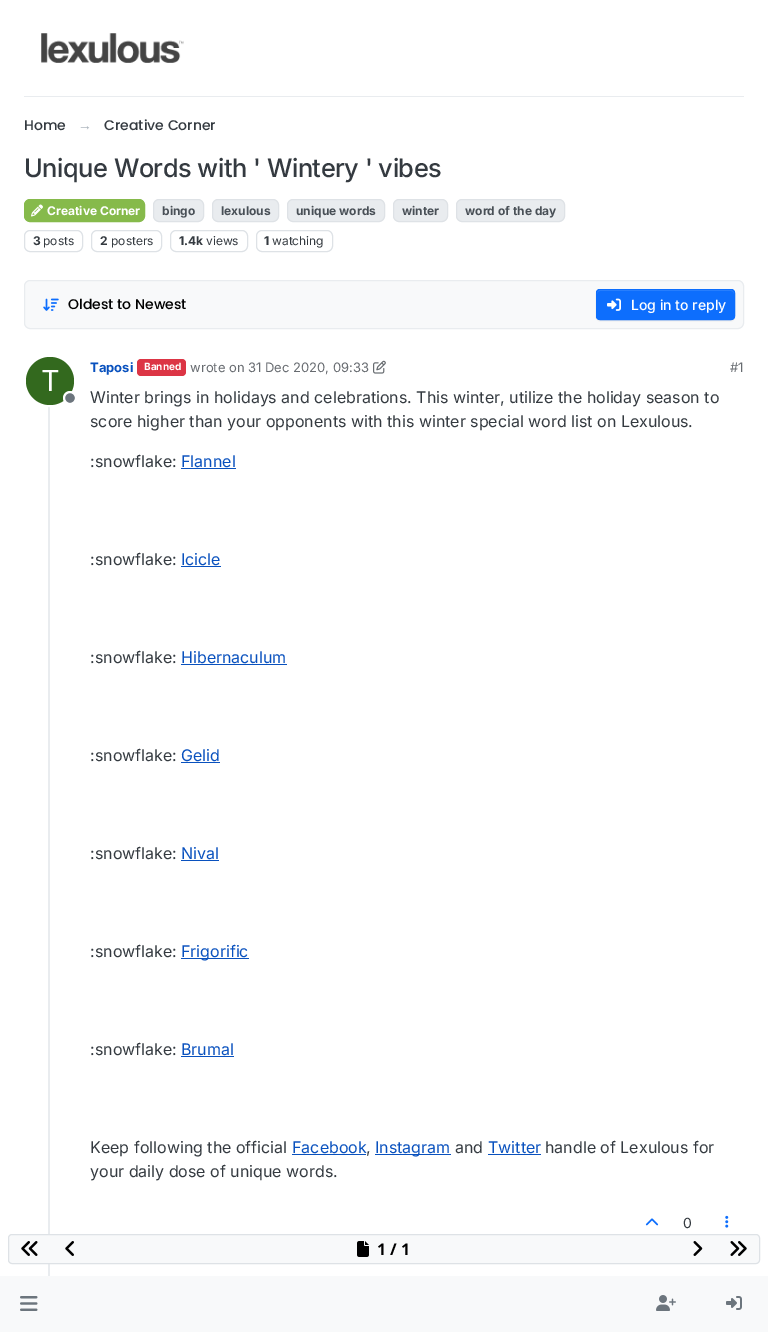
%!PS
<< /PageSize [768 1332] /PageUsesTransparency true >> setpagedevice
/rgb { 3 { 255 div 3 1 roll } repeat setrgbcolor } def
/font { [ exch dup neg 0 0 3 -1 roll 0 0 ] selectfont } def
/alpha { dup .setfillconstantalpha .setstrokeconstantalpha } def
/circle { newpath 0 360 arc closepath } def
/roundrect { 5 dict begin { /r /h /w /y /x } { exch def } forall
  x r add y moveto x w add y 2 copy h add r arct x w add y h add x 1 index r arct
  x y h add x y r arct x y 2 copy exch w add exch r arct closepath end } def
/shadow { 12 dict begin { /a /b /q /h /w /y /x } { exch def } forall gsave /was 0 def
  9 -2 -9 { dup b mul 4 div /e exch def 1 sub .425 mul 2.718 exch exp 1 add a .99 .min exch div /now exch def
    1 1 now sub 1 was sub div sub alpha /was now def
    w h .min e 2 mul add 0 gt { x e sub y e sub w e 2 mul add h e 2 mul add
      q e add b .6 mul add w h .min 2 div e add .min 0 .max roundrect fill } if } for grestore end } def
/picture { 5 dict begin { /h /w /y /x /name } { exch def } forall
  gsave x y translate w h scale
  w h 8 [w 0 0 h 0 0] name (r) file false 3 colorimage grestore end } def
0 .pushpdf14devicefilter
0 1332 translate 1 -1 scale
4 setmiterlimit
255 255 255 rgb
0 0 768 1332 rectfill
233 236 239 rgb
24 96 720 1 rectfill
(img/1.rgb) 41 33 143 30 picture
134 186 75 rgb
24.5 199.5 120 22 5.5 roundrect gsave fill grestore
stroke
(img/2.rgb) 31 204 12 13 picture
233 236 239 rgb
153.5 199.5 50 22 5.5 roundrect gsave fill grestore
222 226 230 rgb
stroke
233 236 239 rgb
212.5 199.5 66 22 5.5 roundrect gsave fill grestore
222 226 230 rgb
stroke
233 236 239 rgb
287.5 199.5 97 22 5.5 roundrect gsave fill grestore
222 226 230 rgb
stroke
233 236 239 rgb
393.5 199.5 54 22 5.5 roundrect gsave fill grestore
222 226 230 rgb
stroke
233 236 239 rgb
456.5 199.5 108 22 5.5 roundrect gsave fill grestore
222 226 230 rgb
stroke
24.5 230.5 58 21 5.5 roundrect stroke
91.5 230.5 70 21 5.5 roundrect stroke
170.5 230.5 77 21 5.5 roundrect stroke
256.5 230.5 76 21 5.5 roundrect stroke
248 249 250 rgb
24.5 280.5 719 48 5.5 roundrect gsave fill grestore
233 236 239 rgb
stroke
(img/3.rgb) 43 298 16 13 picture
0 0 0 rgb
596 290 139 31 4 0.5 0.07 shadow
13 110 253 rgb
596 289 139 31 4 roundrect fill
49 132 253 rgb
600 291 moveto 731 291 lineto 733 291 734 292 734 294 curveto 734 292 734 290 732 290 curveto 599 290 lineto 597 290 597 292 597 294 curveto 597 292 598 291 600 291 curveto closepath fill
13 110 253 rgb
596.5 289.5 138 30 3.5 roundrect stroke
(img/4.rgb) 607 298 14 13 picture
233 236 239 rgb
48 357 2 877 rectfill
255 255 255 rgb
2 setlinewidth
50 381 25 circle stroke
51 105 30 rgb
50 381 24 circle fill
108 117 125 rgb
70 398 6 circle gsave fill grestore
255 255 255 rgb
stroke
220 53 69 rgb
137 359 49 17 4 roundrect fill
(img/5.rgb) 373 360 13 14 picture
[
  [181 468 55 1 9 81 190]
  [181 566 40 1 9 81 190]
  [181 664 106 1 9 81 190]
  [181 762 39 1 9 81 190]
  [181 860 38 1 9 81 190]
  [181 958 68 1 9 81 190]
  [181 1056 53 1 9 81 190]
  [292 1154 74 1 9 81 190]
  [375 1154 76 1 9 81 190]
  [488 1154 53 1 9 81 190]
] { aload pop rgb rectfill } forall
(img/6.rgb) 645 1218 14 8 picture
(img/7.rgb) 725 1215 4 13 picture
233 236 239 rgb
48 1264 2 12 rectfill
248 249 250 rgb
8.5 1234.5 751 29 3.5 roundrect gsave fill grestore
222 226 230 rgb
1 setlinewidth
stroke
(img/8.rgb) 21 1241 17 15 picture
(img/9.rgb) 65 1241 9 15 picture
(img/10.rgb) 357 1241 12 16 picture
(img/11.rgb) 693 1241 10 15 picture
(img/12.rgb) 730 1241 17 15 picture
248 249 250 rgb
0 1276 768 56 rectfill
(img/13.rgb) 20 1296 18 15 picture
(img/14.rgb) 656 1295 20 16 picture
(img/15.rgb) 726 1296 16 14 picture
/Poppins-Medium 14 font
52 58 64 rgb
24 130 moveto (Home) show
/LiberationSans-Regular 14 font
173 181 189 rgb
78 130 moveto (→) show
/Poppins-Medium 14 font
52 58 64 rgb
104 130 moveto (Creative Corner) show
/Inter-Medium 25.4 font
24 177 moveto -0.5 0 (Unique Words with ' Wintery ' vibes) ashow
/Inter-Bold 12 font
255 255 255 rgb
47 215 moveto (Creative Corner) show
73 80 87 rgb
[
  [(bingo) 162 215]
  [(lexulous) 221 215]
  [(unique words) 296 215]
  [(winter) 402 215]
  [(word of the day) 465 215]
] { aload pop moveto show } forall
52 58 64 rgb
33 245 moveto (3) show
/Inter-Regular 12 font
43 245 moveto (posts) show
/Inter-Bold 12 font
100 245 moveto (2) show
/Inter-Regular 12 font
111 245 moveto (posters) show
/Inter-Bold 12 font
179 245 moveto (1.4k) show
/Inter-Regular 12 font
206 245 moveto (views) show
/Inter-Bold 12 font
264 245 moveto (1) show
/Inter-Regular 12 font
272 245 moveto (watching) show
/Poppins-Medium 14 font
0 0 0 rgb
68 309 moveto (Oldest to Newest) show
/Inter-Medium 14 font
255 255 255 rgb
631 310 moveto (Log in to reply) show
/Inter-Regular 29 font
41 391 moveto (T) show
/Inter-Bold 13 font
9 81 190 rgb
90 372 moveto (Taposi) show
/Inter-Bold 10 font
255 255 255 rgb
144 370 moveto (Banned) show
/Inter-Regular 13 font
103 107 112 rgb
190 372 moveto (wrote on 31 Dec 2020, 09:33) show
730 372 moveto (#1) show
/Inter-Regular 16 font
52 58 64 rgb
[
  [(Winter brings in holidays and celebrations. This winter, utilize the holiday season to) 90 403]
  [(score higher than your opponents with this winter special word list on Lexulous.) 90 427]
  [(:snowflake:) 90 467]
] { aload pop moveto show } forall
9 81 190 rgb
181 467 moveto (Flannel) show
52 58 64 rgb
90 565 moveto (:snowflake:) show
9 81 190 rgb
181 565 moveto (Icicle) show
52 58 64 rgb
90 663 moveto (:snowflake:) show
9 81 190 rgb
181 663 moveto (Hibernaculum) show
52 58 64 rgb
90 761 moveto (:snowflake:) show
9 81 190 rgb
181 761 moveto (Gelid) show
52 58 64 rgb
90 859 moveto (:snowflake:) show
9 81 190 rgb
181 859 moveto (Nival) show
52 58 64 rgb
90 957 moveto (:snowflake:) show
9 81 190 rgb
181 957 moveto (Frigorific) show
52 58 64 rgb
90 1055 moveto (:snowflake:) show
9 81 190 rgb
181 1055 moveto (Brumal) show
52 58 64 rgb
90 1153 moveto (Keep following the official) show
9 81 190 rgb
292 1153 moveto (Facebook) show
52 58 64 rgb
366 1153 moveto (,) show
9 81 190 rgb
375 1153 moveto (Instagram) show
52 58 64 rgb
455 1153 moveto (and) show
9 81 190 rgb
488 1153 moveto (Twitter) show
52 58 64 rgb
545 1153 moveto (handle of Lexulous for) show
90 1177 moveto (your daily dose of unique words.) show
/Inter-Regular 14 font
683 1228 moveto (0) show
/NotoSans-Bold 16 font
0 0 0 rgb
377 1255 moveto (1 / 1) show
.poppdf14devicefilter showpage
